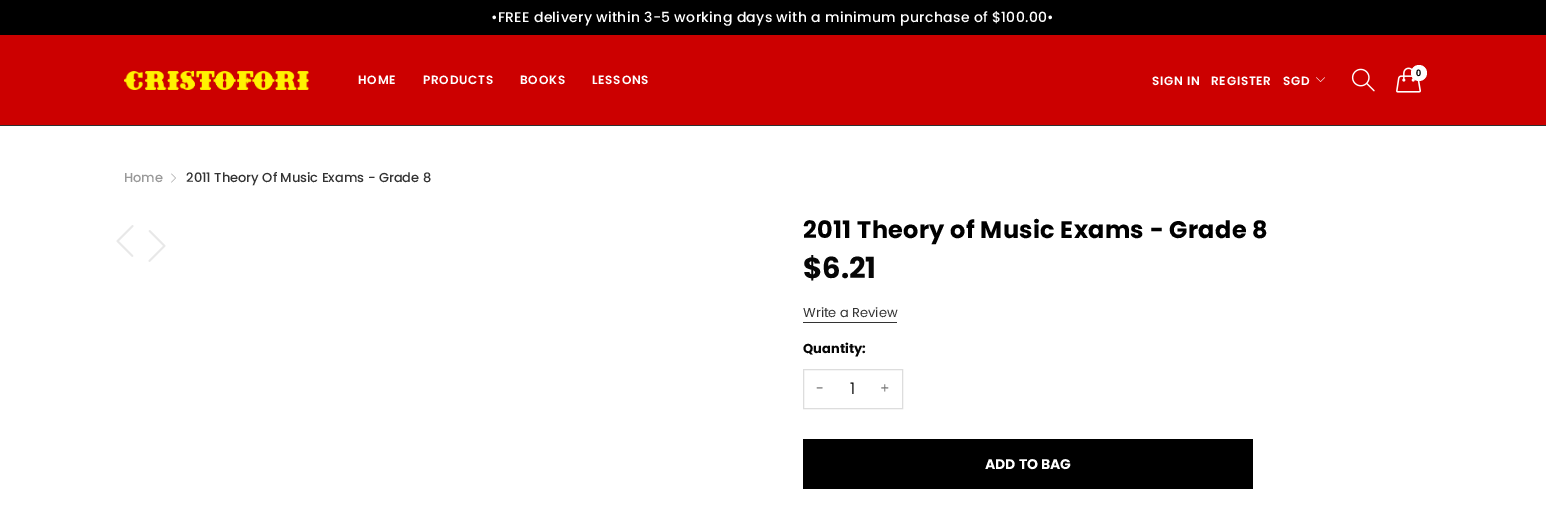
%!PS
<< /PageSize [1546 514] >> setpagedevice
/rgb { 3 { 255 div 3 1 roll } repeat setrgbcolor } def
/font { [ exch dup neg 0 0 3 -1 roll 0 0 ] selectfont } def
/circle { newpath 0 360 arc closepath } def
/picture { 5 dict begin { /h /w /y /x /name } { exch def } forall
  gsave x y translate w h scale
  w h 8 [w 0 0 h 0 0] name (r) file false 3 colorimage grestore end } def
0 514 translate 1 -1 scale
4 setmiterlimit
255 255 255 rgb
0 0 1546 514 rectfill
[
  [0 0 1546 35 0 0 0]
  [0 35 1546 90 204 0 0]
  [0 125 1546 1 47 47 47]
] { aload pop rgb rectfill } forall
(img/1.rgb) 124 71 185 19 picture
(img/2.rgb) 1351 68 24 24 picture
(img/3.rgb) 1396 67 25 26 picture
255 255 255 rgb
1419 73 8 circle fill
(img/4.rgb) 1316 77 9 5 picture
(img/5.rgb) 171 173 5 10 picture
(img/6.rgb) 116 225 18 32 picture
(img/7.rgb) 148 230 18 32 picture
51 51 51 rgb
803 322 94 1 rectfill
221 221 221 rgb
803.5 369.5 99 39 rectstroke
0 0 0 rgb
803 439 450 50 rectfill
/Poppins-Medium 14 font
255 255 255 rgb
491 22 moveto 0.32 0 (•FREE delivery within 3-5 working days with a minimum purchase of $100.00•) ashow
/Poppins-SemiBold 12 font
358 84 moveto 0.75 0 (HOME) ashow
423 84 moveto 0.75 0 (PRODUCTS) ashow
520 84 moveto 0.75 0 (BOOKS) ashow
592 84 moveto 0.75 0 (LESSONS) ashow
/OpenSans-Bold 9 font
0 0 0 rgb
1416 76 moveto 0.75 0 (0) ashow
/Poppins-SemiBold 12 font
255 255 255 rgb
1152 85 moveto 0.75 0 (SIGN IN) ashow
1211 85 moveto 0.75 0 (REGISTER) ashow
1283 85 moveto 0.75 0 (SGD) ashow
/Poppins-Medium 13 font
153 153 153 rgb
124 182 moveto (Home) show
51 51 51 rgb
186 182 moveto (2011 Theory Of Music Exams - Grade 8) show
/Poppins-Bold 24 font
0 0 0 rgb
803 238 moveto 0.32 0 (2011 Theory of Music Exams - Grade 8) ashow
/Poppins-Bold 29 font
6 6 6 rgb
803 278 moveto ($6.21) show
/Poppins-Regular 13 font
51 51 51 rgb
803 317 moveto (Write a Review) show
/Poppins-Bold 13 font
6 6 6 rgb
803 353 moveto (Quantity:) show
/Poppins-Regular 14 font
119 119 119 rgb
816 393 moveto (-) show
/Poppins-Regular 16 font
6 6 6 rgb
850 394 moveto (1) show
/Poppins-Regular 14 font
119 119 119 rgb
880 393 moveto (+) show
/Poppins-Bold 14 font
255 255 255 rgb
985 469 moveto (ADD TO BAG) show
showpage
